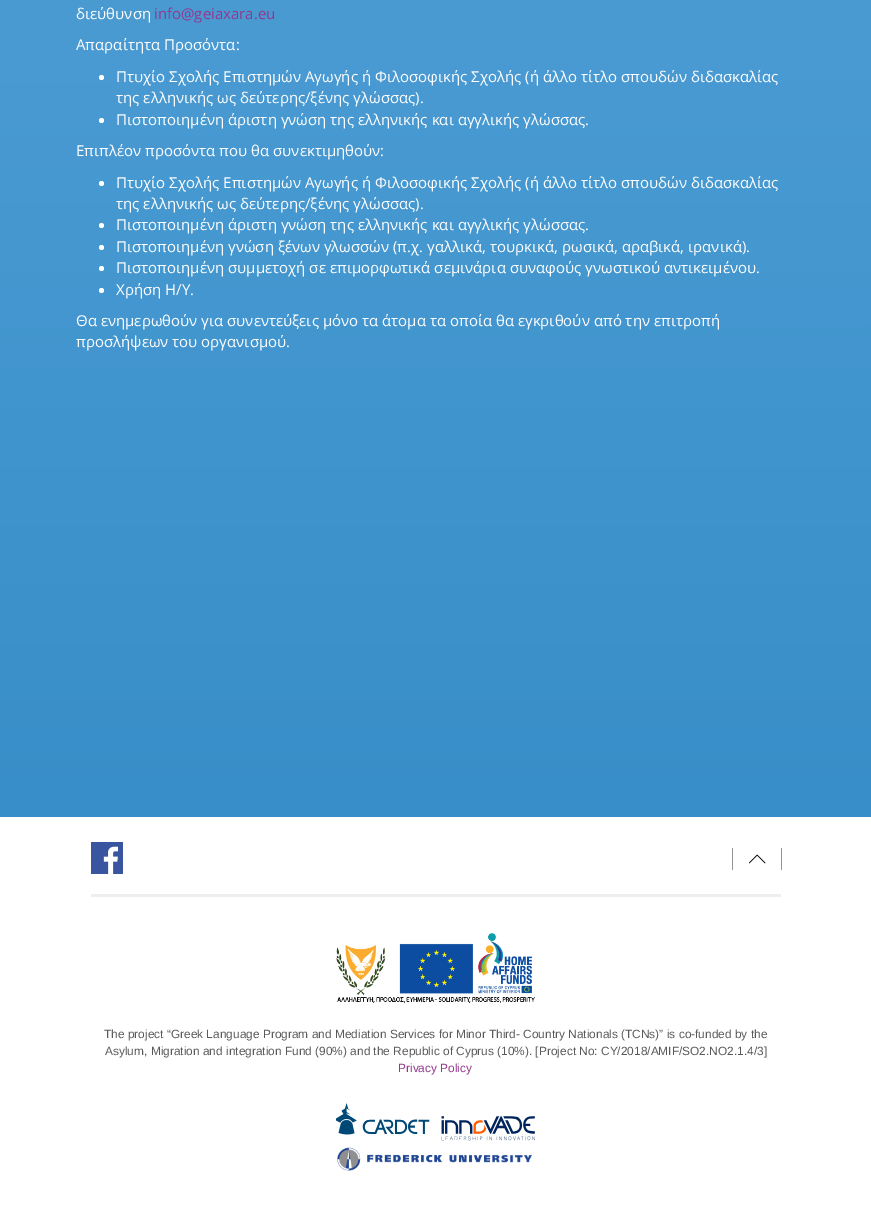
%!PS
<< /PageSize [871 1209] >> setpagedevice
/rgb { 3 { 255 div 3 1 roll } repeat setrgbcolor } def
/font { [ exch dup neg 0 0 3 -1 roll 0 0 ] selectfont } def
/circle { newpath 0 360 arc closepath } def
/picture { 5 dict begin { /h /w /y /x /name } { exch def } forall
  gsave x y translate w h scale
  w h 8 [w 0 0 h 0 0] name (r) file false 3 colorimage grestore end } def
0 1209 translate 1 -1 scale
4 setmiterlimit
255 255 255 rgb
0 0 871 1209 rectfill
gsave 0 0 moveto 871 0 lineto 871 817 lineto 0 817 lineto closepath clip newpath
<< /ShadingType 2 /ColorSpace /DeviceRGB /Coords [435 -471 436 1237] /Extend [true true] /Function << /FunctionType 2 /Domain [0 1] /C0 [0.337 0.635 0.851] /C1 [0.18 0.533 0.765] /N 1 >> >> shfill grestore
101.5 77.5 2.5 circle fill
101.5 120.5 2.5 circle fill
101.5 183.5 2.5 circle fill
101.5 225.5 2.5 circle fill
101.5 247.5 2.5 circle fill
101.5 268.5 2.5 circle fill
101.5 290.5 2.5 circle fill
(img/1.rgb) 91 842 32 32 picture
149 149 149 rgb
781 848 1 22 rectfill
732 848 1 22 rectfill
(img/2.rgb) 749 854 17 10 picture
238 238 238 rgb
91 894 690 3 rectfill
(img/3.rgb) 336 933 199 70 picture
(img/4.rgb) 336 1103 199 68 picture
/OpenSans-Regular 15 font
255 255 255 rgb
76 19 moveto (διεύθυνση) show
147 55 143 rgb
154 19 moveto (info@geiaxara.eu) show
255 255 255 rgb
[
  [(Απαραίτητα Προσόντα:) 76 50]
  [(Πτυχίο Σχολής Επιστημών Αγωγής ή Φιλοσοφικής Σχολής \(ή άλλο τίτλο σπουδών διδασκαλίας) 116 82]
  [(της ελληνικής ως δεύτερης/ξένης γλώσσας\).) 116 103]
  [(Πιστοποιημένη άριστη γνώση της ελληνικής και αγγλικής γλώσσας.) 116 125]
  [(Eπιπλέον προσόντα που θα συνεκτιμηθούν:) 76 156]
  [(Πτυχίο Σχολής Επιστημών Αγωγής ή Φιλοσοφικής Σχολής \(ή άλλο τίτλο σπουδών διδασκαλίας) 116 188]
  [(της ελληνικής ως δεύτερης/ξένης γλώσσας\).) 116 209]
  [(Πιστοποιημένη άριστη γνώση της ελληνικής και αγγλικής γλώσσας.) 116 230]
  [(Πιστοποιημένη γνώση ξένων γλωσσών \(π.χ. γαλλικά, τουρκικά, ρωσικά, αραβικά, ιρανικά\).) 116 252]
  [(Πιστοποιημένη συμμετοχή σε επιμορφωτικά σεμινάρια συναφούς γνωστικού αντικειμένου.) 116 273]
  [(Χρήση Η/Υ.) 116 295]
  [(Θα ενημερωθούν για συνεντεύξεις μόνο τα άτομα τα οποία θα εγκριθούν από την επιτροπή) 76 326]
  [(προσλήψεων του οργανισμού.) 76 347]
] { aload pop moveto show } forall
/LiberationSans-Regular 11.9 font
89 89 89 rgb
104 1038 moveto (The project “Greek Language Program and Mediation Services for Minor Third- Country Nationals \(TCNs\)” is co-funded by the) show
105 1055 moveto (Asylum, Migration and integration Fund \(90%\) and the Republic of Cyprus \(10%\). [Project No: CY/2018/AMIF/SO2.NO2.1.4/3]) show
147 55 143 rgb
398 1072 moveto (Privacy Policy) show
showpage
